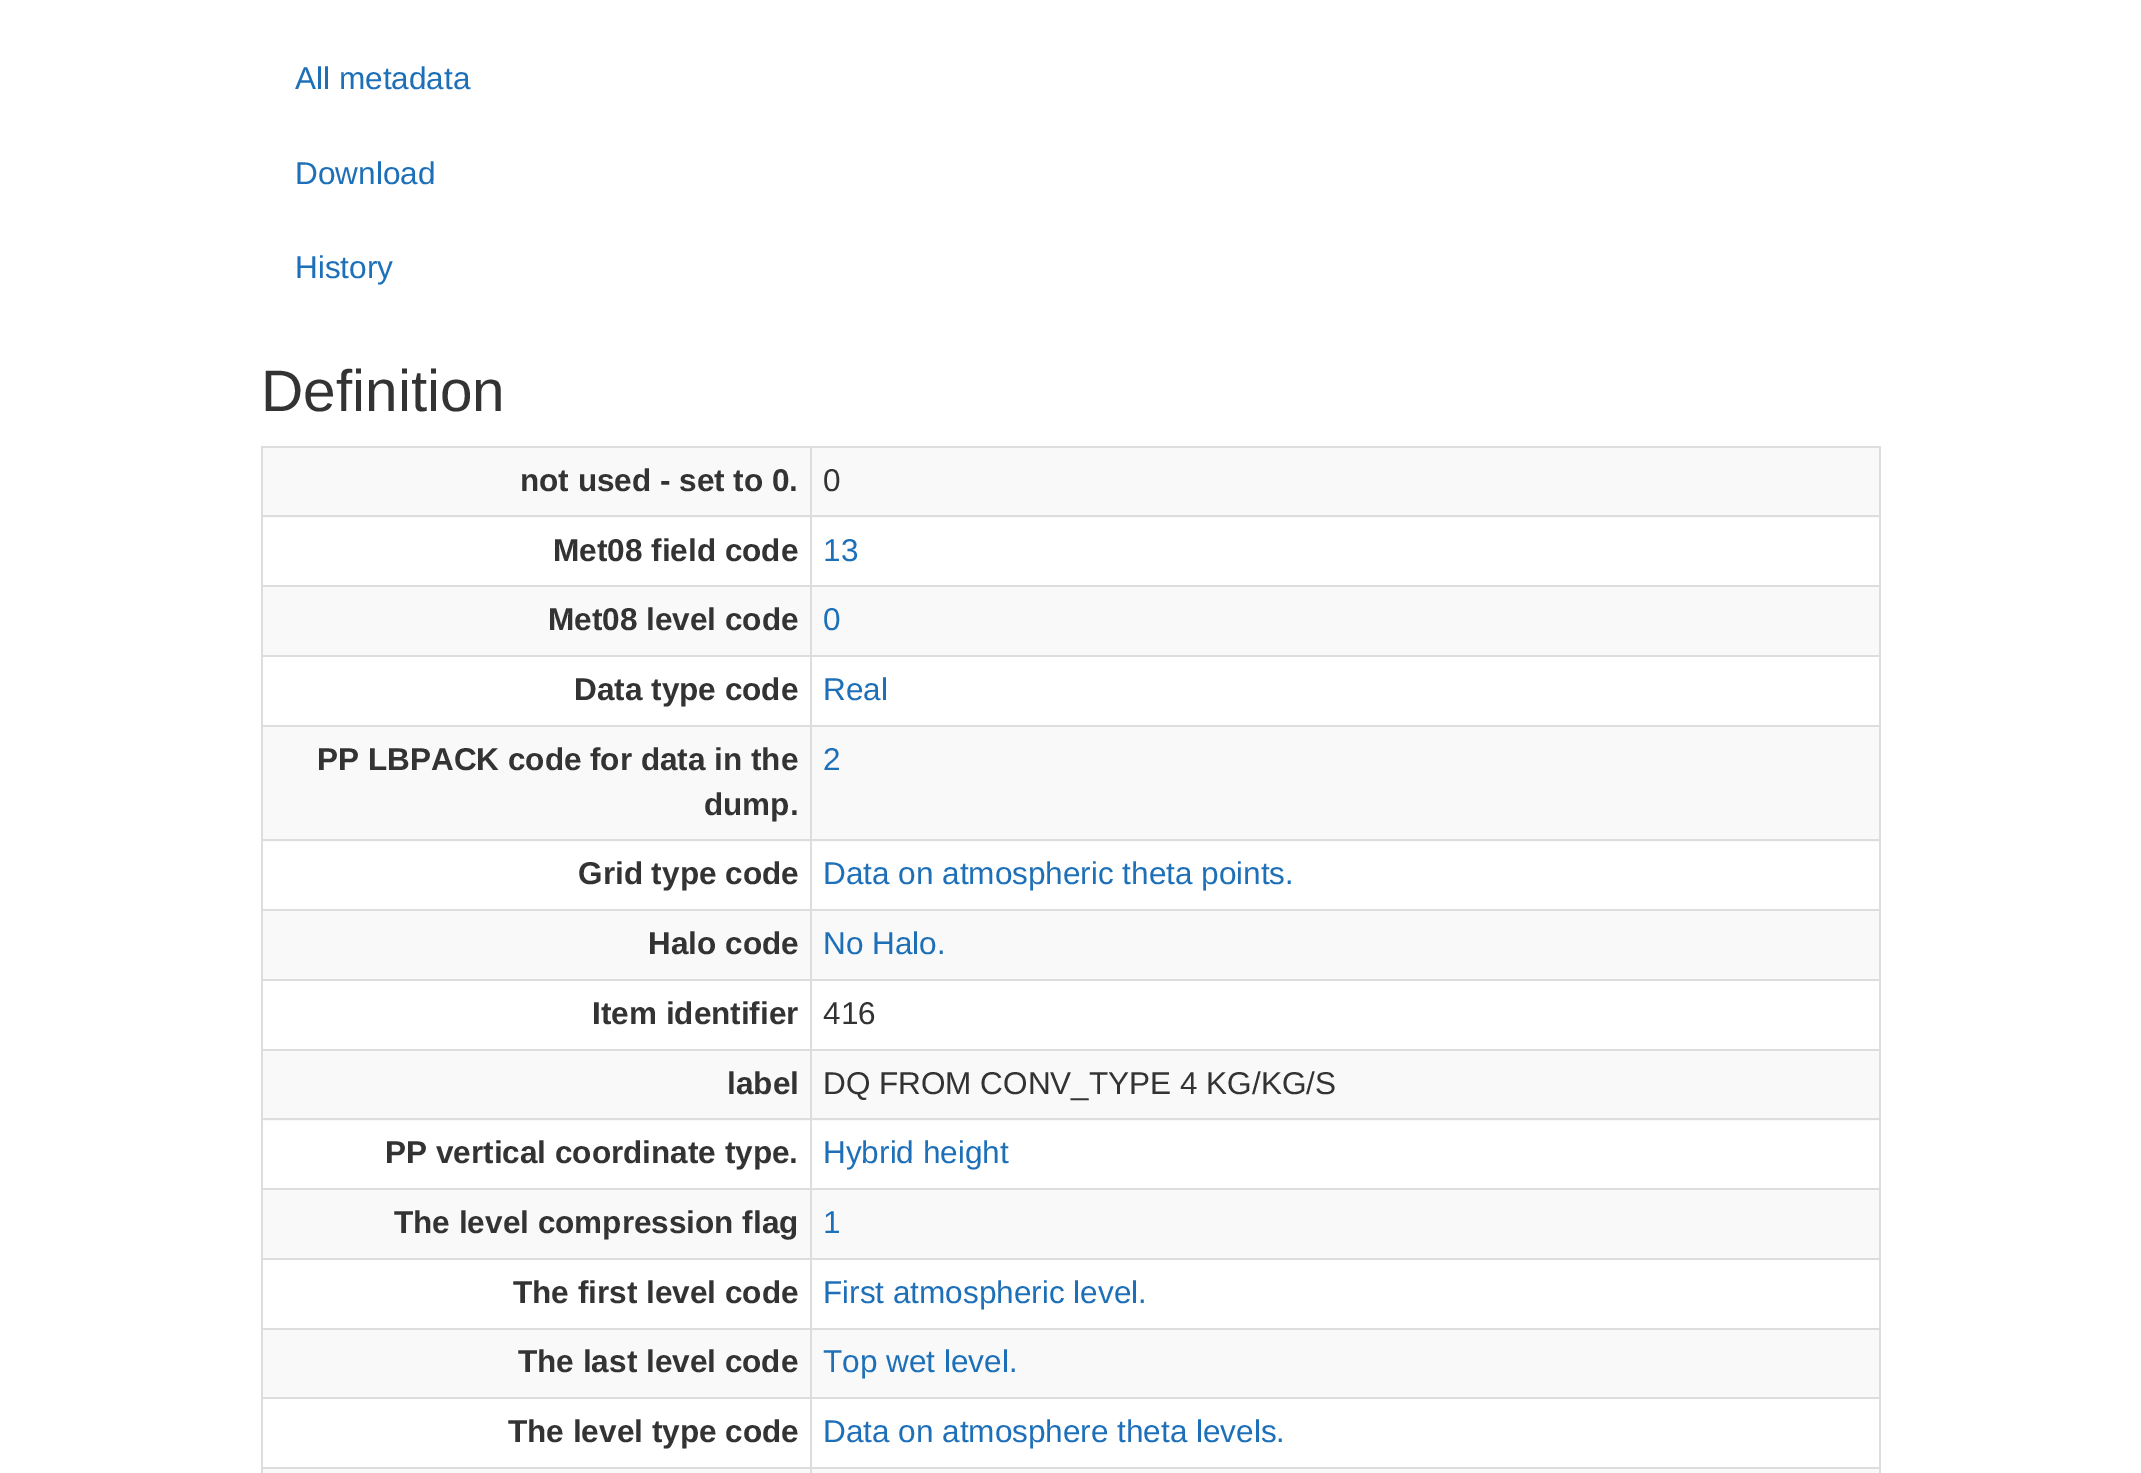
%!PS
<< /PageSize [2141 1473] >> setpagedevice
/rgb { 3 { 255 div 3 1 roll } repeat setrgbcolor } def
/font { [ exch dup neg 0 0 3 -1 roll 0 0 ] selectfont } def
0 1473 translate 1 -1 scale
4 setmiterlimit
255 255 255 rgb
0 0 2141 1473 rectfill
[
  [261 446 1620 2 221 221 221]
  [263 1469 1618 4 249 249 249]
  [1879 446 2 1027 221 221 221]
  [261 446 2 1027 221 221 221]
  [263 448 1616 70 249 249 249]
  [810 515 1071 2 221 221 221]
  [810 585 1071 2 221 221 221]
  [263 587 1616 68 249 249 249]
  [810 655 1071 2 221 221 221]
  [810 725 1071 2 221 221 221]
  [263 727 1616 115 249 249 249]
  [810 839 1071 2 221 221 221]
  [810 909 1071 2 221 221 221]
  [263 911 1616 68 249 249 249]
  [810 979 1071 2 221 221 221]
  [810 1049 1071 2 221 221 221]
  [263 1051 1616 70 249 249 249]
  [810 1118 1071 2 221 221 221]
  [810 1188 1071 2 221 221 221]
  [263 1190 1616 68 249 249 249]
  [810 1258 1071 2 221 221 221]
  [810 1328 1071 2 221 221 221]
  [263 1330 1616 67 249 249 249]
  [810 1397 1071 2 221 221 221]
  [810 1467 1071 2 221 221 221]
  [810 1467 2 6 221 221 221]
  [261 1467 551 2 221 221 221]
  [810 1397 2 72 221 221 221]
  [261 1397 551 2 221 221 221]
  [810 1328 2 72 221 221 221]
  [261 1328 551 2 221 221 221]
  [810 1258 2 72 221 221 221]
  [261 1258 551 2 221 221 221]
  [810 1188 2 72 221 221 221]
  [261 1188 551 2 221 221 221]
  [810 1118 2 72 221 221 221]
  [261 1118 551 2 221 221 221]
  [810 1049 2 72 221 221 221]
  [261 1049 551 2 221 221 221]
  [810 979 2 72 221 221 221]
  [261 979 551 2 221 221 221]
  [810 909 2 72 221 221 221]
  [261 909 551 2 221 221 221]
  [810 839 2 72 221 221 221]
  [261 839 551 2 221 221 221]
  [810 725 2 117 221 221 221]
  [261 725 551 2 221 221 221]
  [810 655 2 72 221 221 221]
  [261 655 551 2 221 221 221]
  [810 585 2 72 221 221 221]
  [261 585 551 2 221 221 221]
  [810 515 2 72 221 221 221]
  [261 515 551 2 221 221 221]
  [810 446 2 72 221 221 221]
] { aload pop rgb rectfill } forall
/LiberationSans-Regular 31.5 font
29 112 184 rgb
[
  [(All metadata) 295 89]
  [(Download) 295 184]
  [(History) 295 278]
] { aload pop moveto show } forall
/LiberationSans-Regular 58.5 font
51 51 51 rgb
261 411 moveto (Definition) show
/LiberationSans-Bold 31.5 font
520 491 moveto (not used - set to 0.) show
/LiberationSans-Regular 31.5 font
823 491 moveto (0) show
/LiberationSans-Bold 31.5 font
553 561 moveto (Met08 field code) show
/LiberationSans-Regular 31.5 font
29 112 184 rgb
823 561 moveto (13) show
/LiberationSans-Bold 31.5 font
51 51 51 rgb
548 630 moveto (Met08 level code) show
/LiberationSans-Regular 31.5 font
29 112 184 rgb
823 630 moveto (0) show
/LiberationSans-Bold 31.5 font
51 51 51 rgb
574 700 moveto (Data type code) show
/LiberationSans-Regular 31.5 font
29 112 184 rgb
823 700 moveto (Real) show
/LiberationSans-Bold 31.5 font
51 51 51 rgb
317 770 moveto (PP LBPACK code for data in the) show
704 815 moveto (dump.) show
/LiberationSans-Regular 31.5 font
29 112 184 rgb
823 770 moveto (2) show
/LiberationSans-Bold 31.5 font
51 51 51 rgb
578 884 moveto (Grid type code) show
/LiberationSans-Regular 31.5 font
29 112 184 rgb
823 884 moveto (Data on atmospheric theta points.) show
/LiberationSans-Bold 31.5 font
51 51 51 rgb
648 954 moveto (Halo code) show
/LiberationSans-Regular 31.5 font
29 112 184 rgb
823 954 moveto (No Halo.) show
/LiberationSans-Bold 31.5 font
51 51 51 rgb
592 1024 moveto (Item identifier) show
/LiberationSans-Regular 31.5 font
823 1024 moveto (416) show
/LiberationSans-Bold 31.5 font
727 1094 moveto (label) show
/LiberationSans-Regular 31.5 font
823 1094 moveto (DQ FROM CONV_TYPE 4 KG/KG/S) show
/LiberationSans-Bold 31.5 font
385 1163 moveto (PP vertical coordinate type.) show
/LiberationSans-Regular 31.5 font
29 112 184 rgb
823 1163 moveto (Hybrid height) show
/LiberationSans-Bold 31.5 font
51 51 51 rgb
394 1233 moveto (The level compression flag) show
/LiberationSans-Regular 31.5 font
29 112 184 rgb
823 1233 moveto (1) show
/LiberationSans-Bold 31.5 font
51 51 51 rgb
513 1303 moveto (The first level code) show
/LiberationSans-Regular 31.5 font
29 112 184 rgb
823 1303 moveto (First atmospheric level.) show
/LiberationSans-Bold 31.5 font
51 51 51 rgb
518 1372 moveto (The last level code) show
/LiberationSans-Regular 31.5 font
29 112 184 rgb
823 1372 moveto (Top wet level.) show
/LiberationSans-Bold 31.5 font
51 51 51 rgb
508 1442 moveto (The level type code) show
/LiberationSans-Regular 31.5 font
29 112 184 rgb
823 1442 moveto (Data on atmosphere theta levels.) show
showpage
